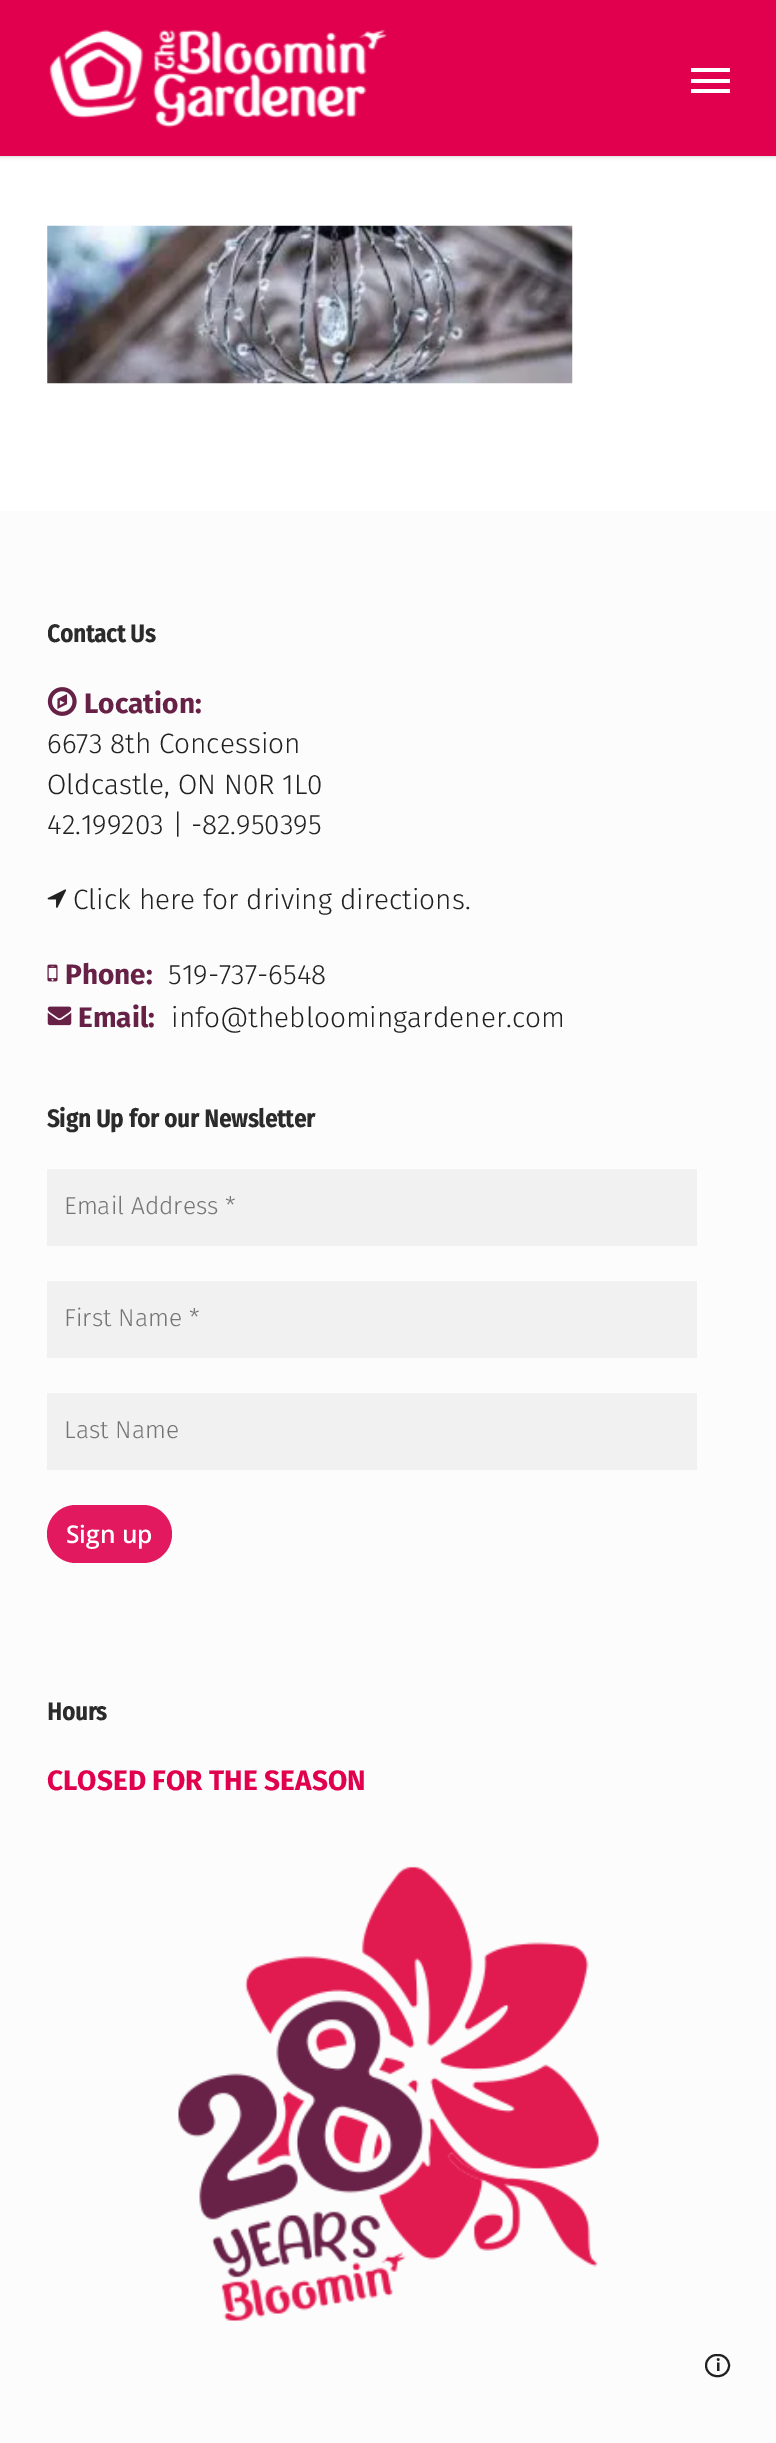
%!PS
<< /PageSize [776 2443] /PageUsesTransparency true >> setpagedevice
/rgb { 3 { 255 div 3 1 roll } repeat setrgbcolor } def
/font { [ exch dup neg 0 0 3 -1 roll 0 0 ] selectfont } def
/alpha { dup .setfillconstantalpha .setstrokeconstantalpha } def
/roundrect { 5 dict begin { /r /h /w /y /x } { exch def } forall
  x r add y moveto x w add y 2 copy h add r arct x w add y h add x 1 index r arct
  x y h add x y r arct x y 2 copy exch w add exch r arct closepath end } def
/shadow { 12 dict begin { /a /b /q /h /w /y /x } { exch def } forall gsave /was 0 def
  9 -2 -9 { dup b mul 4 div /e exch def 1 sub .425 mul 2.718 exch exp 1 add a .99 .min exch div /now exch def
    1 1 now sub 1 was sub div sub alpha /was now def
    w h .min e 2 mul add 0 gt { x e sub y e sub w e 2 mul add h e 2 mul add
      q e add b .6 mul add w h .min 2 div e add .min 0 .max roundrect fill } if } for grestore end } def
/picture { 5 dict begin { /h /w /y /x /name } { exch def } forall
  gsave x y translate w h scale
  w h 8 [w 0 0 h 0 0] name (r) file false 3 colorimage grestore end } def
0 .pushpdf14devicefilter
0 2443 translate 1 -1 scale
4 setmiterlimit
255 255 255 rgb
0 0 776 2443 rectfill
0 0 0 rgb
0 0 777 156 0 2.5 0.22 shadow
224 0 77 rgb
0 0 776 156 rectfill
(img/1.rgb) 49 29 339 99 picture
[
  [691 68 39 4 255 255 255]
  [691 89 39 4 255 255 255]
  [691 79 39 4 255 255 255]
] { aload pop rgb rectfill } forall
(img/2.rgb) 47 225 526 159 picture
252 252 252 rgb
0 511 776 1932 rectfill
(img/3.rgb) 47 687 30 29 picture
(img/4.rgb) 47 889 20 19 picture
(img/5.rgb) 47 964 11 18 picture
(img/6.rgb) 47 1006 25 20 picture
[
  [47 1169 650 77 241 241 241]
  [47 1281 650 77 241 241 241]
  [47 1393 650 77 241 241 241]
] { aload pop rgb rectfill } forall
227 25 95 rgb
47 1505 125 58 29 roundrect fill
(img/7.rgb) 178 1866 421 455 picture
33 33 33 rgb
2 setlinewidth
706 2355 23 21 10.5 roundrect stroke
/FiraSansCondensed-Bold 24.5 font
43 43 43 rgb
47 642 moveto (Contact Us) show
/FiraSans-Bold 28 font
103 33 70 rgb
84 713 moveto (Location:) show
/FiraSans-Light 28 font
33 33 33 rgb
[
  [(6673 8th Concession) 47 753]
  [(Oldcastle, ON N0R 1L0) 47 794]
  [(42.199203 | -82.950395) 47 834]
  [(Click here for driving directions.) 73 909]
] { aload pop moveto show } forall
/FiraSans-Bold 28 font
103 33 70 rgb
65 984 moveto (Phone:) show
/FiraSans-Light 28 font
33 33 33 rgb
168 984 moveto (519-737-6548) show
/FiraSans-Bold 28 font
103 33 70 rgb
78 1027 moveto (Email:) show
/FiraSans-Light 28 font
33 33 33 rgb
171 1027 moveto (info@thebloomingardener.com) show
/FiraSansCondensed-Bold 24.5 font
43 43 43 rgb
47 1127 moveto (Sign Up for our Newsletter) show
/FiraSans-Light 24.5 font
117 117 117 rgb
[
  [(Email Address *) 64 1214]
  [(First Name *) 64 1326]
  [(Last Name) 64 1438]
] { aload pop moveto show } forall
/OpenSans-SemiBold 24.5 font
255 255 255 rgb
66 1543 moveto (Sign up) show
/FiraSansCondensed-Bold 24.5 font
43 43 43 rgb
47 1720 moveto (Hours) show
/FiraSans-Bold 28 font
224 0 77 rgb
47 1790 moveto (CLOSED FOR THE SEASON) show
/FiraSans-Bold 16 font
33 33 33 rgb
716 2371 moveto (i) show
.poppdf14devicefilter showpage
